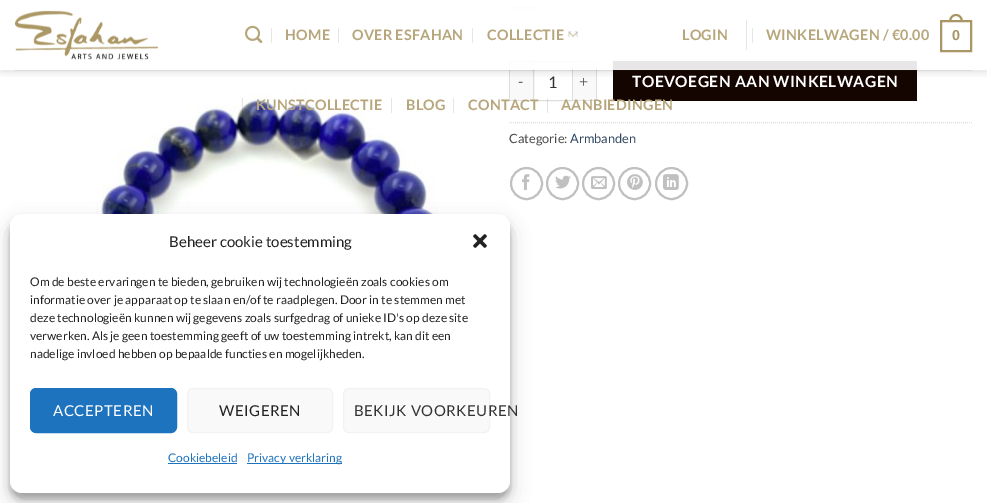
%!PS
<< /PageSize [987 503] /PageUsesTransparency true >> setpagedevice
/rgb { 3 { 255 div 3 1 roll } repeat setrgbcolor } def
/font { [ exch dup neg 0 0 3 -1 roll 0 0 ] selectfont } def
/alpha { dup .setfillconstantalpha .setstrokeconstantalpha } def
/circle { newpath 0 360 arc closepath } def
/roundrect { 5 dict begin { /r /h /w /y /x } { exch def } forall
  x r add y moveto x w add y 2 copy h add r arct x w add y h add x 1 index r arct
  x y h add x y r arct x y 2 copy exch w add exch r arct closepath end } def
/shadow { 12 dict begin { /a /b /q /h /w /y /x } { exch def } forall gsave /was 0 def
  9 -2 -9 { dup b mul 4 div /e exch def 1 sub .425 mul 2.718 exch exp 1 add a .99 .min exch div /now exch def
    1 1 now sub 1 was sub div sub alpha /was now def
    w h .min e 2 mul add 0 gt { x e sub y e sub w e 2 mul add h e 2 mul add
      q e add b .6 mul add w h .min 2 div e add .min 0 .max roundrect fill } if } for grestore end } def
/picture { 5 dict begin { /h /w /y /x /name } { exch def } forall
  gsave x y translate w h scale
  w h 8 [w 0 0 h 0 0] name (r) file false 3 colorimage grestore end } def
0 .pushpdf14devicefilter
0 503 translate 1 -1 scale
4 setmiterlimit
255 255 255 rgb
0 0 987 503 rectfill
[
  [509 6 30 3 230 230 230]
  [510 62 23 38 249 249 249]
  [509 61 24 1 221 221 221]
  [509 100 24 1 221 221 221]
  [509 61 1 40 221 221 221]
] { aload pop rgb rectfill } forall
533.5 61.5 39 39 rectstroke
[
  [573 62 23 38 249 249 249]
  [573 61 24 1 221 221 221]
  [596 61 1 40 221 221 221]
  [613 61 304 40 20 5 0]
] { aload pop rgb rectfill } forall
gsave
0 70 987 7 rectclip
0 0 0 rgb
1 1 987 70 0 5 0.15 shadow
grestore
0.9 alpha
255 255 255 rgb
509 6 408 64 rectfill
1 alpha
(img/1.rgb) 15 10 143 50 picture
(img/2.rgb) 245 25 18 18 picture
[
  [271 28 1 15 230 230 230]
  [338 28 1 15 230 230 230]
  [472 28 1 15 230 230 230]
] { aload pop rgb rectfill } forall
(img/3.rgb) 568 31 10 6 picture
(img/4.rgb) 88 91 364 123 picture
0.1 alpha
[
  [242 98 1 15 0 0 0]
] { aload pop rgb rectfill } forall
1 alpha
[
  [391 98 1 15 230 230 230]
  [453 98 1 15 230 230 230]
] { aload pop rgb rectfill } forall
0.1 alpha
[
  [547 98 1 15 0 0 0]
] { aload pop rgb rectfill } forall
1 alpha
[
  [746 20 1 30 230 230 230]
  [752 28 1 15 230 230 230]
] { aload pop rgb rectfill } forall
170 150 100 rgb
2 setlinewidth
941 21 30 30 rectstroke
956 14 moveto 960.5 14 963 18 963 22 curveto 949 22 lineto 949 18 951.5 14 956 14 curveto closepath 956 16 moveto 959.5 16 961 19 961 22 curveto 951 22 lineto 951 19 952.5 16 956 16 curveto closepath eofill
0.1 alpha
74 74 74 rgb
15 70 957 1 rectfill
1 alpha
221 221 221 rgb
573 100 24 1 rectfill
1 setlinewidth
[1 1] 0 setdash
509 122.5 moveto 972 122.5 lineto stroke
192 192 192 rgb
2 setlinewidth
[] 0 setdash
526.5 183.5 15.5 circle stroke
(img/5.rgb) 522 174 8 16 picture
562.5 183.5 15.5 circle stroke
(img/6.rgb) 555 175 16 14 picture
598.5 183.5 15.5 circle stroke
(img/7.rgb) 591 176 16 13 picture
634.5 183.5 15.5 circle stroke
(img/8.rgb) 627 174 16 16 picture
671.5 183.5 15.5 circle stroke
(img/9.rgb) 663 174 16 16 picture
0 0 0 rgb
10 220 500 279 12 3 0.23 shadow
10 224 500 279 12 10 0.19 shadow
255 255 255 rgb
10 214 500 279 12 roundrect fill
(img/10.rgb) 473 234 14 14 picture
30 115 190 rgb
30.5 388.5 146 44 5.5 roundrect gsave fill grestore
1 setlinewidth
stroke
249 249 249 rgb
187.5 388.5 145 44 5.5 roundrect gsave fill grestore
242 242 242 rgb
stroke
249 249 249 rgb
343.5 388.5 146 44 5.5 roundrect gsave fill grestore
242 242 242 rgb
stroke
30 115 190 rgb
168 463 69 1 rectfill
247 463 95 1 rectfill
/Lato-Bold 14.4 font
183 166 123 rgb
285 40 moveto 0.25 0 (HOME) ashow
352 40 moveto 0.25 0 (OVER ESFAHAN) ashow
487 40 moveto 0.25 0 (COLLECTIE) ashow
256 110 moveto 0.25 0 (KUNSTCOLLECTIE) ashow
406 110 moveto 0.25 0 (BLOG) ashow
468 110 moveto 0.25 0 (CONTACT) ashow
561 110 moveto 0.25 0 (AANBIEDINGEN) ashow
682 40 moveto 0.25 0 (LOGIN) ashow
766 40 moveto 0.25 0 (WINKELWAGEN / €0.00) ashow
/LiberationSans-Bold 14.4 font
170 150 100 rgb
952 40 moveto 0.25 0 (0) ashow
/Lato-Regular 15.5 font
102 102 102 rgb
518 87 moveto 0.5 0 (-) ashow
/Lato-Regular 16 font
51 51 51 rgb
548 88 moveto (1) show
/Lato-Regular 15.5 font
102 102 102 rgb
579 87 moveto 0.5 0 (+) ashow
/Lato-Bold 15.5 font
255 255 255 rgb
632 87 moveto 0.5 0 (TOEVOEGEN AAN WINKELWAGEN) ashow
/Lato-Regular 12.75 font
74 74 74 rgb
509 143 moveto (Categorie:) show
51 72 98 rgb
570 143 moveto (Armbanden) show
/Lato-Regular 15 font
34 34 34 rgb
169 247 moveto (Beheer cookie toestemming) show
/Lato-Regular 12 font
[
  [(Om de beste ervaringen te bieden, gebruiken wij technologieën zoals cookies om) 30 286]
  [(informatie over je apparaat op te slaan en/of te raadplegen. Door in te stemmen met) 30 304]
  [(deze technologieën kunnen wij gegevens zoals surfgedrag of unieke ID's op deze site) 30 322]
  [(verwerken. Als je geen toestemming geeft of uw toestemming intrekt, kan dit een) 30 340]
  [(nadelige invloed hebben op bepaalde functies en mogelijkheden.) 30 358]
] { aload pop moveto show } forall
/Lato-Regular 15 font
255 255 255 rgb
53 416 moveto 0.5 0 (ACCEPTEREN) ashow
34 34 34 rgb
219 416 moveto 0.5 0 (WEIGEREN) ashow
51 51 51 rgb
354 416 moveto 0.5 0 (BEKIJK VOORKEUREN) ashow
/Lato-Regular 12 font
30 115 190 rgb
168 462 moveto (Cookiebeleid) show
247 462 moveto (Privacy verklaring) show
.poppdf14devicefilter showpage
